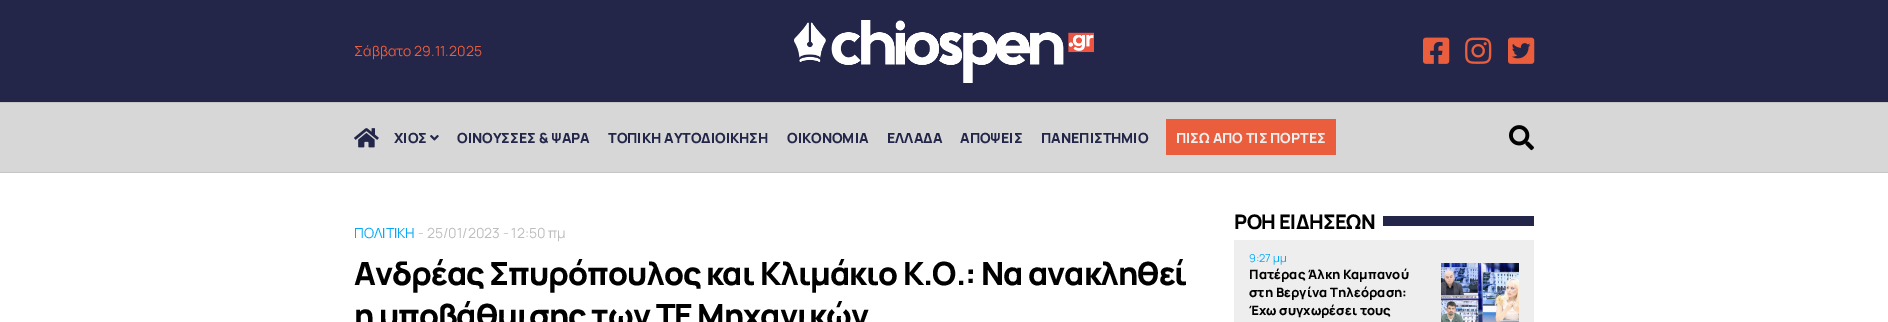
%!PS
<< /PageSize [1888 322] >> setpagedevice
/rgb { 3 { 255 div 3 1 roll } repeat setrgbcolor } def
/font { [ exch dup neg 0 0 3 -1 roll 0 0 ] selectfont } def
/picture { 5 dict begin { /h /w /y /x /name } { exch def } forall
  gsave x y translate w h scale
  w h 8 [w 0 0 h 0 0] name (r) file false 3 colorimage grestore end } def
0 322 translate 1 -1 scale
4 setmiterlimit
255 255 255 rgb
0 0 1888 322 rectfill
35 38 73 rgb
0 0 1888 102 rectfill
(img/1.rgb) 794 20 300 63 picture
(img/2.rgb) 1423 37 27 27 picture
(img/3.rgb) 1465 37 27 27 picture
(img/4.rgb) 1508 37 27 27 picture
[
  [0 103 1888 69 215 215 215]
  [0 102 1888 1 198 198 198]
  [0 172 1888 1 198 198 198]
] { aload pop rgb rectfill } forall
(img/5.rgb) 354 128 25 20 picture
(img/6.rgb) 430 135 9 6 picture
234 93 61 rgb
1166 119 170 36 rectfill
(img/7.rgb) 1509 125 25 26 picture
35 38 73 rgb
1383 216 151 10 rectfill
238 238 238 rgb
1234 240 300 82 rectfill
(img/8.rgb) 1441 263 78 59 picture
/Manrope-Regular 14 font
234 93 61 rgb
354 56 moveto (Σάββατο 29.11.2025) show
/Manrope-ExtraBold 14 font
35 38 73 rgb
[
  [(ΧΙΟΣ) 394 143]
  [(ΟΙΝΟΥΣΣΕΣ & ΨΑΡΑ) 457 143]
  [(ΤΟΠΙΚΗ ΑΥΤΟΔΙΟΙΚΗΣΗ) 608 143]
  [(ΟΙΚΟΝΟΜΙΑ) 787 143]
  [(ΕΛΛΑΔΑ) 887 143]
  [(ΑΠΟΨΕΙΣ) 960 143]
  [(ΠΑΝΕΠΙΣΤΗΜΙΟ) 1041 143]
] { aload pop moveto show } forall
239 239 239 rgb
1176 143 moveto (ΠΙΣΩ ΑΠΟ ΤΙΣ ΠΟΡΤΕΣ) show
/Manrope-Regular 14 font
3 169 247 rgb
354 238 moveto (ΠΟΛΙΤΙΚΗ) show
189 189 189 rgb
418 238 moveto (- 25/01/2023 - 12:50 πμ) show
/Manrope-ExtraBold 32 font
0 0 0 rgb
354 285 moveto -1 0 (Ανδρέας Σπυρόπουλος και Κλιμάκιο Κ.Ο.: Να ανακληθεί) ashow
354 327 moveto -1 0 (η υποβάθμισης των ΤΕ Μηχανικών) ashow
/Manrope-ExtraBold 20 font
1234 229 moveto -0.5 0 (ΡΟΗ ΕΙΔΗΣΕΩΝ) ashow
/Manrope-Regular 11 font
3 169 247 rgb
1249 262 moveto (9:27 μμ) show
/Manrope-ExtraBold 13 font
0 0 0 rgb
[
  [(Πατέρας Άλκη Καμπανού) 1249 279]
  [(στη Βεργίνα Τηλεόραση:) 1249 297]
  [(Έχω συγχωρέσει τους) 1249 315]
] { aload pop moveto show } forall
showpage
